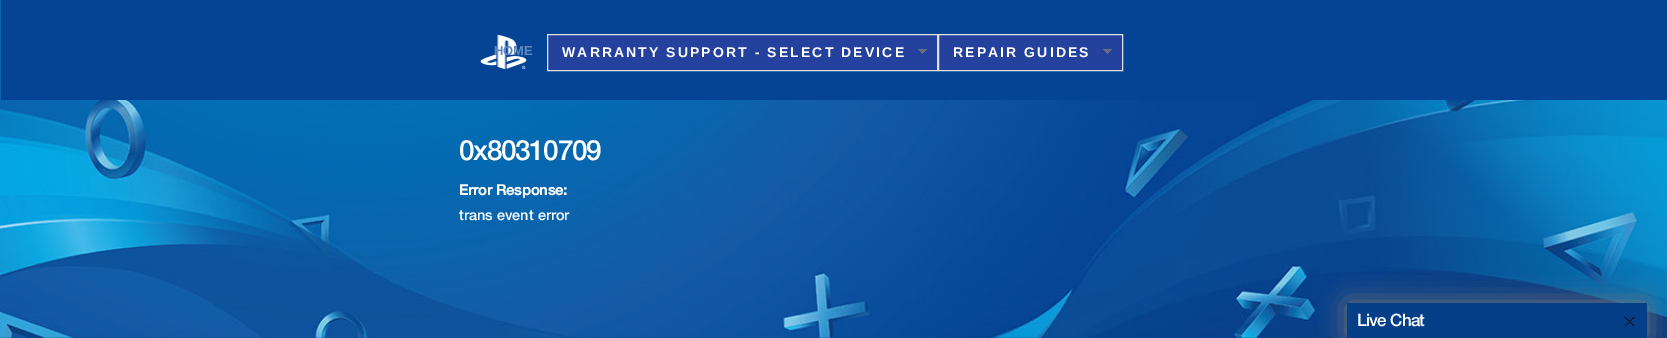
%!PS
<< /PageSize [1667 338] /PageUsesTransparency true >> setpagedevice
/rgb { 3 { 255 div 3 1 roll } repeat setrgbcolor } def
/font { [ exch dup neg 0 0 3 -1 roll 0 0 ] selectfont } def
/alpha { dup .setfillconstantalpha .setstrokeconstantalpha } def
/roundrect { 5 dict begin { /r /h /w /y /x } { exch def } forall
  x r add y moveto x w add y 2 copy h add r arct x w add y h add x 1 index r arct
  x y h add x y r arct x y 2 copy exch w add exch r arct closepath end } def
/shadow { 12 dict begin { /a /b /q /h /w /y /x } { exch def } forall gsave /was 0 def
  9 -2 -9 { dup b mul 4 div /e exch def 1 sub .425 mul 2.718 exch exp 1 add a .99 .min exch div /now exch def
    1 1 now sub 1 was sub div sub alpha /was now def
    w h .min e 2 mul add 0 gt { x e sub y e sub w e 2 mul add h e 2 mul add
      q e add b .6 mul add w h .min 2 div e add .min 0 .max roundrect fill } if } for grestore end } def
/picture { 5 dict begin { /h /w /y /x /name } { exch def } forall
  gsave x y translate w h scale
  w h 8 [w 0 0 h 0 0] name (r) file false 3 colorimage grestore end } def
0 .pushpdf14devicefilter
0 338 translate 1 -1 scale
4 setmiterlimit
255 255 255 rgb
0 0 1667 338 rectfill
(img/1.rgb) 0 0 1667 338 picture
5 68 149 rgb
1 0 1666 100 rectfill
(img/2.rgb) 480 34 47 36 picture
35 65 157 rgb
547.5 34.5 moveto 937.5 34.5 lineto 937.5 70.5 lineto 547.5 70.5 lineto closepath gsave fill grestore
225 225 225 rgb
stroke
(img/3.rgb) 918 49 9 5 picture
35 65 157 rgb
938.5 34.5 moveto 1122.5 34.5 lineto 1122.5 70.5 lineto 938.5 70.5 lineto closepath gsave fill grestore
225 225 225 rgb
stroke
(img/3.rgb) 1103 49 9 5 picture
119 119 119 rgb
1347 303 300 35 0 12.5 1 shadow
5 63 136 rgb
1347 303 300 35 rectfill
(img/4.rgb) 1624 316 11 11 picture
/LiberationSans-Bold 13 font
96 136 187 rgb
494 55 moveto (HOME) show
/LiberationSans-Bold 14 font
255 255 255 rgb
562 57 moveto 2.1 0 (WARRANTY SUPPORT - SELECT DEVICE) ashow
953 57 moveto 2.1 0 (REPAIR GUIDES) ashow
/HelveticaNeue-Medium 28 font
459 160 moveto -1.4 0 (0x80310709) ashow
/HelveticaNeue-Bold 14.5 font
459 195 moveto (Error Response:) show
/HelveticaNeue-Medium 14.5 font
459 220 moveto (trans event error) show
/HelveticaNeue-Medium 17 font
1357 326 moveto -0.75 0 (Live Chat) ashow
.poppdf14devicefilter showpage
